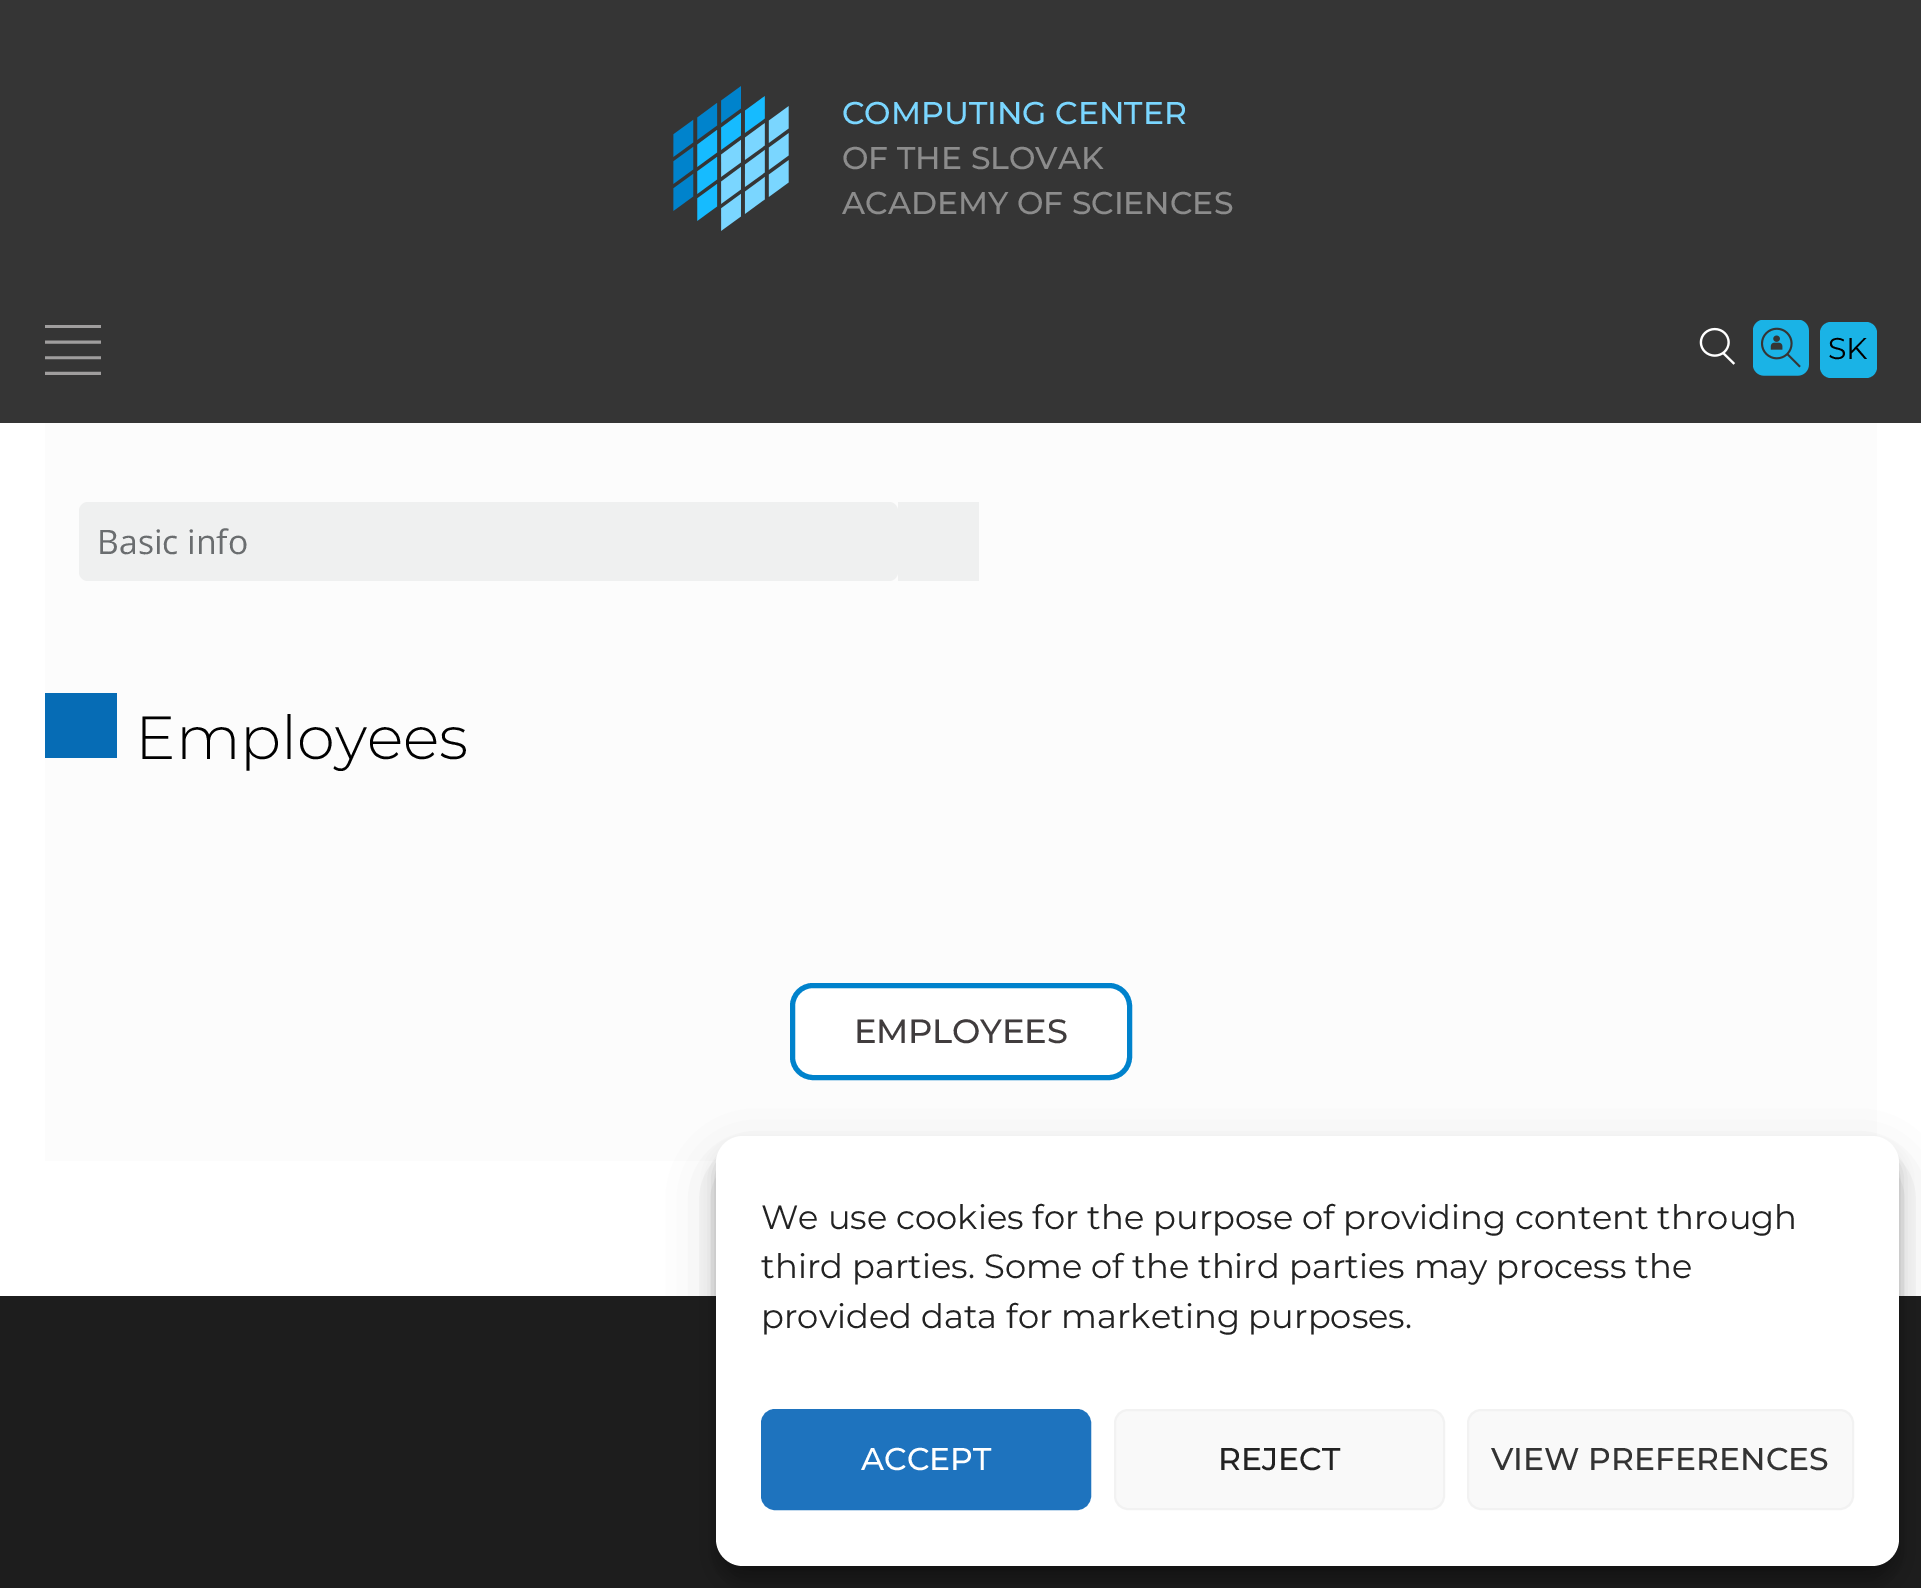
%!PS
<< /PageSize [1921 1588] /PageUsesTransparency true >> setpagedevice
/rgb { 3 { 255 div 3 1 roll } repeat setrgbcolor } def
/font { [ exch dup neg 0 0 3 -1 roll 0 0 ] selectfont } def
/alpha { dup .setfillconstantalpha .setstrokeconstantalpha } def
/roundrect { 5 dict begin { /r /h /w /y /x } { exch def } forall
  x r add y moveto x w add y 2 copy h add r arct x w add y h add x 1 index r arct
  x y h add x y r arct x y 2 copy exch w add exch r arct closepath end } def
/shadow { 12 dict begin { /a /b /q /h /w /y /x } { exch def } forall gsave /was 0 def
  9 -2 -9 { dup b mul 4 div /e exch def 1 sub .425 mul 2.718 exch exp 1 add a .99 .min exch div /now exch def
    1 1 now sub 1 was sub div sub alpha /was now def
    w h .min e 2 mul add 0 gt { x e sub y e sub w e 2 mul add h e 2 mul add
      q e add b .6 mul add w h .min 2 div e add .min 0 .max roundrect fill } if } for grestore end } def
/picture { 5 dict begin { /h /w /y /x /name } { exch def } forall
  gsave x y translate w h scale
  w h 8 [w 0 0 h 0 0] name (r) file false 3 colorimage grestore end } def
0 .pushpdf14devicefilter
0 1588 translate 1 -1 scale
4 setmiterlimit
255 255 255 rgb
0 0 1921 1588 rectfill
53 53 53 rgb
0 0 1921 423 rectfill
(img/1.rgb) 673 86 116 145 picture
(img/2.rgb) 45 325 56 50 picture
(img/3.rgb) 1699 327 37 38 picture
(img/4.rgb) 1753 320 56 56 picture
26 179 230 rgb
1820 322 57 56 11 roundrect fill
252 252 252 rgb
45 423 1832 738 rectfill
239 240 240 rgb
79 502 819 79 9 roundrect fill
898 502 81 79 rectfill
6 108 181 rgb
45 693 72 65 rectfill
255 255 255 rgb
792.5 985.5 337 92 20.5 roundrect gsave fill grestore
0 130 204 rgb
5 setlinewidth
stroke
29 29 29 rgb
0 1296 1921 292 rectfill
0 0 0 rgb
716 1150 1183 430 27 7 0.23 shadow
716 1159 1183 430 27 22.5 0.19 shadow
255 255 255 rgb
716 1136 1183 430 27 roundrect fill
30 115 190 rgb
762 1410 328 99 13 roundrect gsave fill grestore
2 setlinewidth
stroke
249 249 249 rgb
1115 1410 329 99 13 roundrect gsave fill grestore
242 242 242 rgb
stroke
249 249 249 rgb
1468 1410 385 99 13 roundrect gsave fill grestore
242 242 242 rgb
stroke
/Montserrat-Medium 31.5 font
122 214 255 rgb
842 124 moveto (COMPUTING CENTER) show
140 140 140 rgb
842 169 moveto (OF THE SLOVAK) show
842 214 moveto (ACADEMY OF SCIENCES) show
/Montserrat-Regular 30 font
0 0 0 rgb
1828 359 moveto (SK) show
/OpenSans-Regular 33.75 font
106 109 111 rgb
97 554 moveto (Basic info) show
/Montserrat-Light 60.75 font
0 0 0 rgb
135 759 moveto (Employees) show
/Montserrat-Medium 33.75 font
64 60 61 rgb
854 1043 moveto -0.25 0 (EMPLOYEES) ashow
/Montserrat-Regular 33.75 font
34 34 34 rgb
[
  [(We use cookies for the purpose of providing content through) 761 1229]
  [(third parties. Some of the third parties may process the) 761 1278]
  [(provided data for marketing purposes.) 761 1328]
] { aload pop moveto show } forall
/Montserrat-Medium 31.5 font
255 255 255 rgb
861 1470 moveto (ACCEPT) show
34 34 34 rgb
1218 1470 moveto (REJECT) show
51 51 51 rgb
1491 1470 moveto (VIEW PREFERENCES) show
.poppdf14devicefilter showpage
